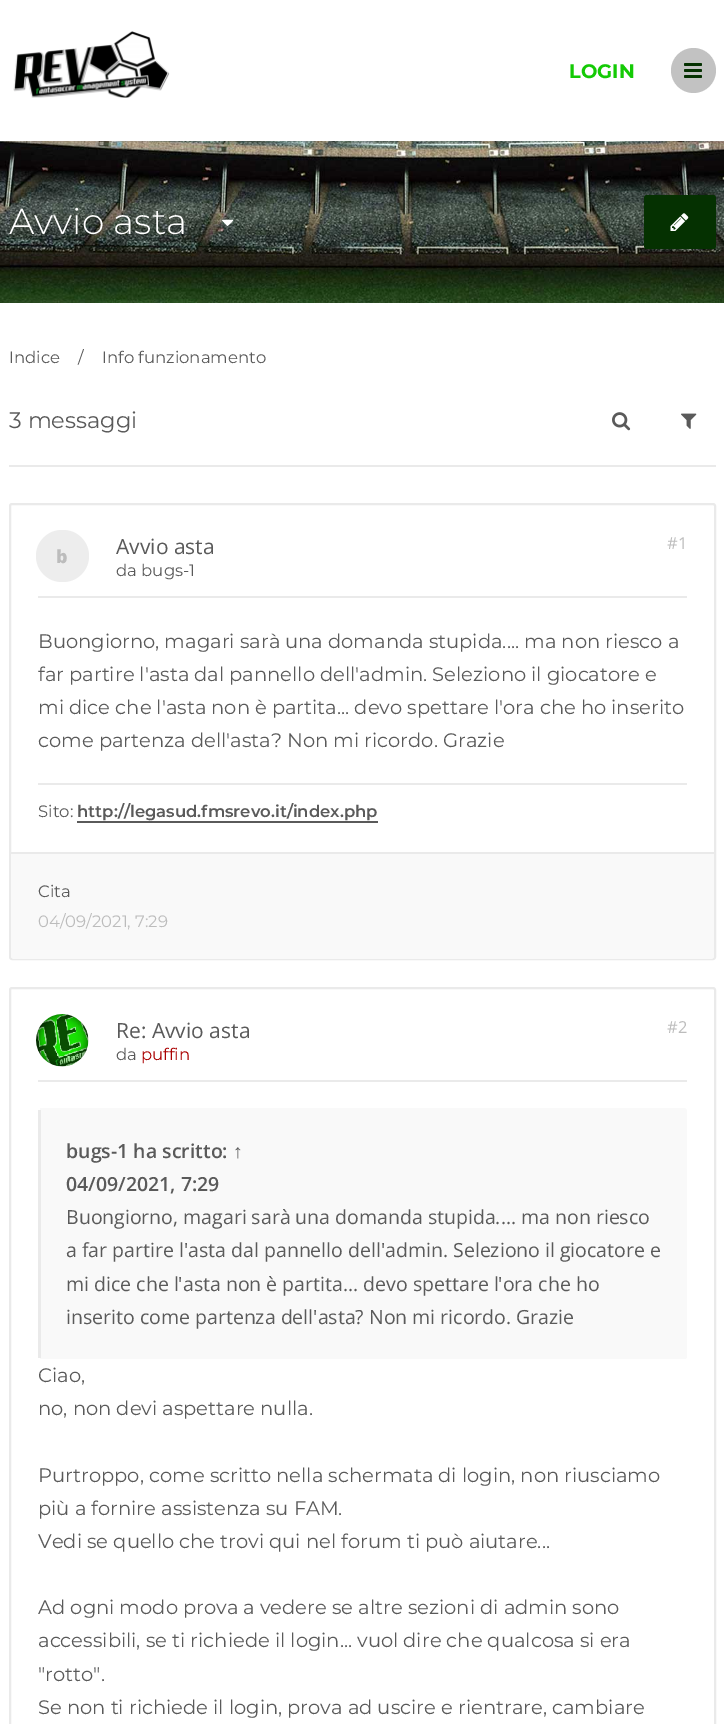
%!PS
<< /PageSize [724 1724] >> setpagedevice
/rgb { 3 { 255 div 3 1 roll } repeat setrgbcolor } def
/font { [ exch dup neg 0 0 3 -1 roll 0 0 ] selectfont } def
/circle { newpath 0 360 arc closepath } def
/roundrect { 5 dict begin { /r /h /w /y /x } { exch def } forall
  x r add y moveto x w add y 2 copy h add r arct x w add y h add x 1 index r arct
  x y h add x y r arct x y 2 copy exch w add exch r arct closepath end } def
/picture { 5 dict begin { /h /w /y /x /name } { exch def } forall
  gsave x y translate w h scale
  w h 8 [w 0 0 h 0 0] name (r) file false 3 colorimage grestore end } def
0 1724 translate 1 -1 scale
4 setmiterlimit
255 255 255 rgb
0 0 724 1724 rectfill
(img/1.rgb) 13 31 157 67 picture
194 194 194 rgb
693.5 70.5 22.5 circle fill
(img/2.rgb) 684 63 18 15 picture
(img/3.rgb) 0 141 724 162 picture
(img/4.rgb) 222 219 12 7 picture
5 49 1 rgb
644 195 72 54 3 roundrect fill
(img/5.rgb) 670 213 19 18 picture
234 234 234 rgb
9 465 707 2 rectfill
(img/6.rgb) 612 412 19 19 picture
(img/7.rgb) 681 413 16 16 picture
2 setlinewidth
10 504 705 455 2 roundrect stroke
[
  [38 596 649 2 234 234 234]
  [38 783 649 2 234 234 234]
  [77 821 301 2 90 90 90]
] { aload pop rgb rectfill } forall
249 249 249 rgb
11 854 moveto 714 854 lineto 714 956 lineto 714 957.5 712.5 959 711 959 curveto 14 959 lineto 12.5 959 11 957.5 11 956 curveto closepath fill
234 234 234 rgb
11 852 703 2 rectfill
237 237 237 rgb
36 530 53 52 26 roundrect fill
234 234 234 rgb
10 988 705 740 2 roundrect stroke
(img/8.rgb) 36 1014 53 53 picture
38 1080 649 2 rectfill
249 249 249 rgb
40 1108 moveto 684 1108 lineto 686 1108 687 1110 687 1112 curveto 687 1356 lineto 687 1358 686 1359 684 1359 curveto 40 1359 lineto closepath fill
234 234 234 rgb
38 1110 3 248 rectfill
/Montserrat-Bold 19.5 font
20 202 5 rgb
569 78 moveto (LOGIN) show
/Montserrat-Light 36 font
255 255 255 rgb
9 234 moveto (Avvio asta) show
/Montserrat-Regular 16.5 font
90 90 90 rgb
[
  [(Indice) 9 363]
  [(/) 78 363]
  [(Info funzionamento) 102 363]
] { aload pop moveto show } forall
/Montserrat-Regular 22.5 font
9 428 moveto (3 messaggi) show
/OpenSans-Regular 21 font
116 554 moveto (Avvio asta) show
/OpenSans-Regular 16.5 font
188 188 188 rgb
667 549 moveto (#1) show
/Montserrat-Regular 16.5 font
90 90 90 rgb
116 576 moveto (da bugs-1) show
/Montserrat-Regular 19.5 font
[
  [(Buongiorno, magari sarà una domanda stupida.... ma non riesco a) 38 648]
  [(far partire l'asta dal pannello dell'admin. Seleziono il giocatore e) 38 681]
  [(mi dice che l'asta non è partita... devo spettare l'ora che ho inserito) 38 714]
  [(come partenza dell'asta? Non mi ricordo. Grazie) 38 747]
] { aload pop moveto show } forall
/Montserrat-Regular 16.5 font
38 817 moveto (Sito:) show
/Montserrat-SemiBold 16.5 font
77 817 moveto (http://legasud.fmsrevo.it/index.php) show
/Montserrat-Regular 16.5 font
38 897 moveto (Cita) show
188 188 188 rgb
38 927 moveto (04/09/2021, 7:29) show
/NotoSans-Black 18 font
56 563 moveto (b) show
/OpenSans-Regular 21 font
90 90 90 rgb
116 1038 moveto (Re: Avvio asta) show
/OpenSans-Regular 16.5 font
188 188 188 rgb
667 1033 moveto (#2) show
/Montserrat-Regular 16.5 font
90 90 90 rgb
116 1060 moveto (da) show
170 0 0 rgb
141 1060 moveto (puffin) show
/OpenSans-SemiBold 19.5 font
90 90 90 rgb
66 1158 moveto (bugs-1 ha scritto:) show
/LiberationSerif-Bold 19.5 font
233 1158 moveto (↑) show
/OpenSans-SemiBold 19.5 font
66 1191 moveto (04/09/2021, 7:29) show
/OpenSans-Regular 19.5 font
[
  [(Buongiorno, magari sarà una domanda stupida.... ma non riesco) 66 1224]
  [(a far partire l'asta dal pannello dell'admin. Seleziono il giocatore e) 66 1257]
  [(mi dice che l'asta non è partita... devo spettare l'ora che ho) 66 1291]
  [(inserito come partenza dell'asta? Non mi ricordo. Grazie) 66 1324]
] { aload pop moveto show } forall
/Montserrat-Regular 19.5 font
[
  [(Ciao,) 38 1382]
  [(no, non devi aspettare nulla.) 38 1415]
  [(Purtroppo, come scritto nella schermata di login, non riusciamo) 38 1482]
  [(più a fornire assistenza su FAM.) 38 1515]
  [(Vedi se quello che trovi qui nel forum ti può aiutare...) 38 1548]
  [(Ad ogni modo prova a vedere se altre sezioni di admin sono) 38 1614]
  [(accessibili, se ti richiede il login... vuol dire che qualcosa si era) 38 1647]
  [("rotto".) 38 1681]
  [(Se non ti richiede il login, prova ad uscire e rientrare, cambiare) 38 1714]
] { aload pop moveto show } forall
showpage
